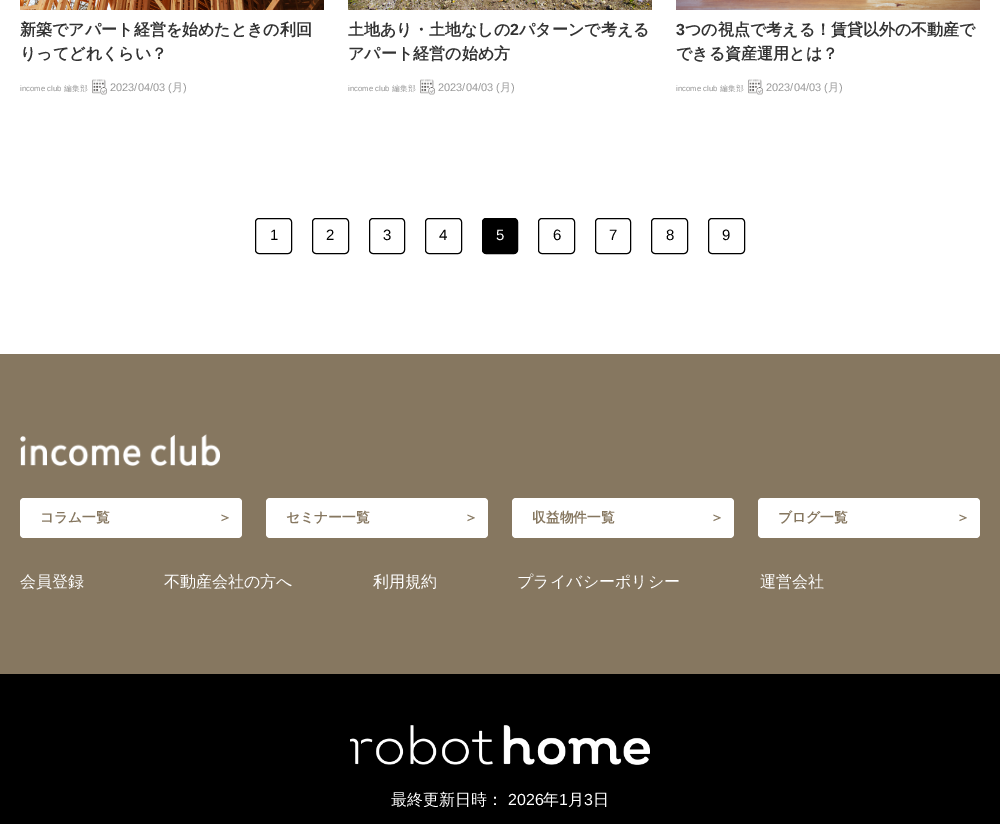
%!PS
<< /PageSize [1000 824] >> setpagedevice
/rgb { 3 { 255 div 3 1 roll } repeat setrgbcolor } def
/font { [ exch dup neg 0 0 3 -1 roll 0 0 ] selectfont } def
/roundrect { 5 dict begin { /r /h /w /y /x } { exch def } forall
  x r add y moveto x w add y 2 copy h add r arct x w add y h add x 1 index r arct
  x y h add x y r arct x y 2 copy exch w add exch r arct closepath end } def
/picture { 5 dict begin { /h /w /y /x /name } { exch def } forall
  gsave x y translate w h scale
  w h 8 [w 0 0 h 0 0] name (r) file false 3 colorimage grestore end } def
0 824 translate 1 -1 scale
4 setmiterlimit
255 255 255 rgb
0 0 1000 824 rectfill
(img/1.rgb) 20 0 304 10 picture
(img/2.rgb) 92 79 15 16 picture
(img/3.rgb) 348 0 304 10 picture
(img/4.rgb) 420 79 15 16 picture
(img/5.rgb) 676 0 304 10 picture
(img/2.rgb) 748 79 15 16 picture
0 0 0 rgb
255.5 218.5 36 35 3.5 roundrect stroke
312.5 218.5 36 35 3.5 roundrect stroke
369.5 218.5 35 35 3.5 roundrect stroke
425.5 218.5 36 35 3.5 roundrect stroke
482.5 218.5 35 35 3.5 roundrect gsave fill grestore
stroke
538.5 218.5 36 35 3.5 roundrect stroke
595.5 218.5 35 35 3.5 roundrect stroke
651.5 218.5 36 35 3.5 roundrect stroke
708.5 218.5 36 35 3.5 roundrect stroke
134 119 96 rgb
0 354 1000 320 rectfill
(img/6.rgb) 20 434 200 32 picture
255 255 255 rgb
20 498 222 40 4 roundrect fill
266 498 222 40 4 roundrect fill
512 498 222 40 4 roundrect fill
758 498 222 40 4 roundrect fill
0 0 0 rgb
0 674 1000 150 rectfill
(img/7.rgb) 350 725 300 40 picture
/WenQuanYiZenHei-Bold 16 font
51 51 51 rgb
20 35 moveto (新築でアパート経営を始めたときの利回) show
20 59 moveto (りってどれくらい？) show
/LiberationSans-Regular 7.75 font
153 153 153 rgb
20 91 moveto (income club) show
/WenQuanYiZenHei-Medium 7.75 font
64 91 moveto (編集部) show
/LiberationSans-Regular 11 font
110 91 moveto (2023/04/03 \() show
/WenQuanYiZenHei-Medium 11 font
172 91 moveto (月) show
/LiberationSans-Regular 11 font
183 91 moveto (\)) show
/WenQuanYiZenHei-Bold 16 font
51 51 51 rgb
348 35 moveto (土地あり・土地なしの) show
/LiberationSans-Bold 16 font
510 35 moveto (2) show
/WenQuanYiZenHei-Bold 16 font
519 35 moveto (パターンで考える) show
348 59 moveto (アパート経営の始め方) show
/LiberationSans-Regular 7.75 font
153 153 153 rgb
348 91 moveto (income club) show
/WenQuanYiZenHei-Medium 7.75 font
392 91 moveto (編集部) show
/LiberationSans-Regular 11 font
438 91 moveto (2023/04/03 \() show
/WenQuanYiZenHei-Medium 11 font
500 91 moveto (月) show
/LiberationSans-Regular 11 font
511 91 moveto (\)) show
/LiberationSans-Bold 16 font
51 51 51 rgb
676 35 moveto (3) show
/WenQuanYiZenHei-Bold 16 font
685 35 moveto (つの視点で考える！賃貸以外の不動産で) show
676 59 moveto (できる資産運用とは？) show
/LiberationSans-Regular 7.75 font
153 153 153 rgb
676 91 moveto (income club) show
/WenQuanYiZenHei-Medium 7.75 font
720 91 moveto (編集部) show
/LiberationSans-Regular 11 font
766 91 moveto (2023/04/03 \() show
/WenQuanYiZenHei-Medium 11 font
828 91 moveto (月) show
/LiberationSans-Regular 11 font
839 91 moveto (\)) show
/LiberationSans-Regular 15 font
0 0 0 rgb
[
  [(1) 270 240]
  [(2) 326 240]
  [(3) 383 240]
  [(4) 439 240]
] { aload pop moveto show } forall
255 255 255 rgb
496 240 moveto (5) show
0 0 0 rgb
[
  [(6) 553 240]
  [(7) 609 240]
  [(8) 666 240]
  [(9) 722 240]
] { aload pop moveto show } forall
/WenQuanYiZenHei-Bold 13.75 font
134 119 96 rgb
[
  [(コラム一覧) 40 522]
  [(＞) 218 522]
  [(セミナー一覧) 286 522]
  [(＞) 464 522]
  [(収益物件一覧) 532 522]
  [(＞) 710 522]
  [(ブログ一覧) 778 522]
  [(＞) 956 522]
] { aload pop moveto show } forall
/WenQuanYiZenHei-Medium 16 font
255 255 255 rgb
[
  [(会員登録) 20 587]
  [(不動産会社の方へ) 164 587]
  [(利用規約) 373 587]
  [(プライバシーポリシー) 517 587]
  [(運営会社) 760 587]
  [(最終更新日時：) 391 805]
] { aload pop moveto show } forall
/LiberationSans-Regular 16 font
508 805 moveto (2026) show
/WenQuanYiZenHei-Medium 16 font
543 805 moveto (年) show
/LiberationSans-Regular 16 font
559 805 moveto (1) show
/WenQuanYiZenHei-Medium 16 font
568 805 moveto (月) show
/LiberationSans-Regular 16 font
584 805 moveto (3) show
/WenQuanYiZenHei-Medium 16 font
593 805 moveto (日) show
showpage
